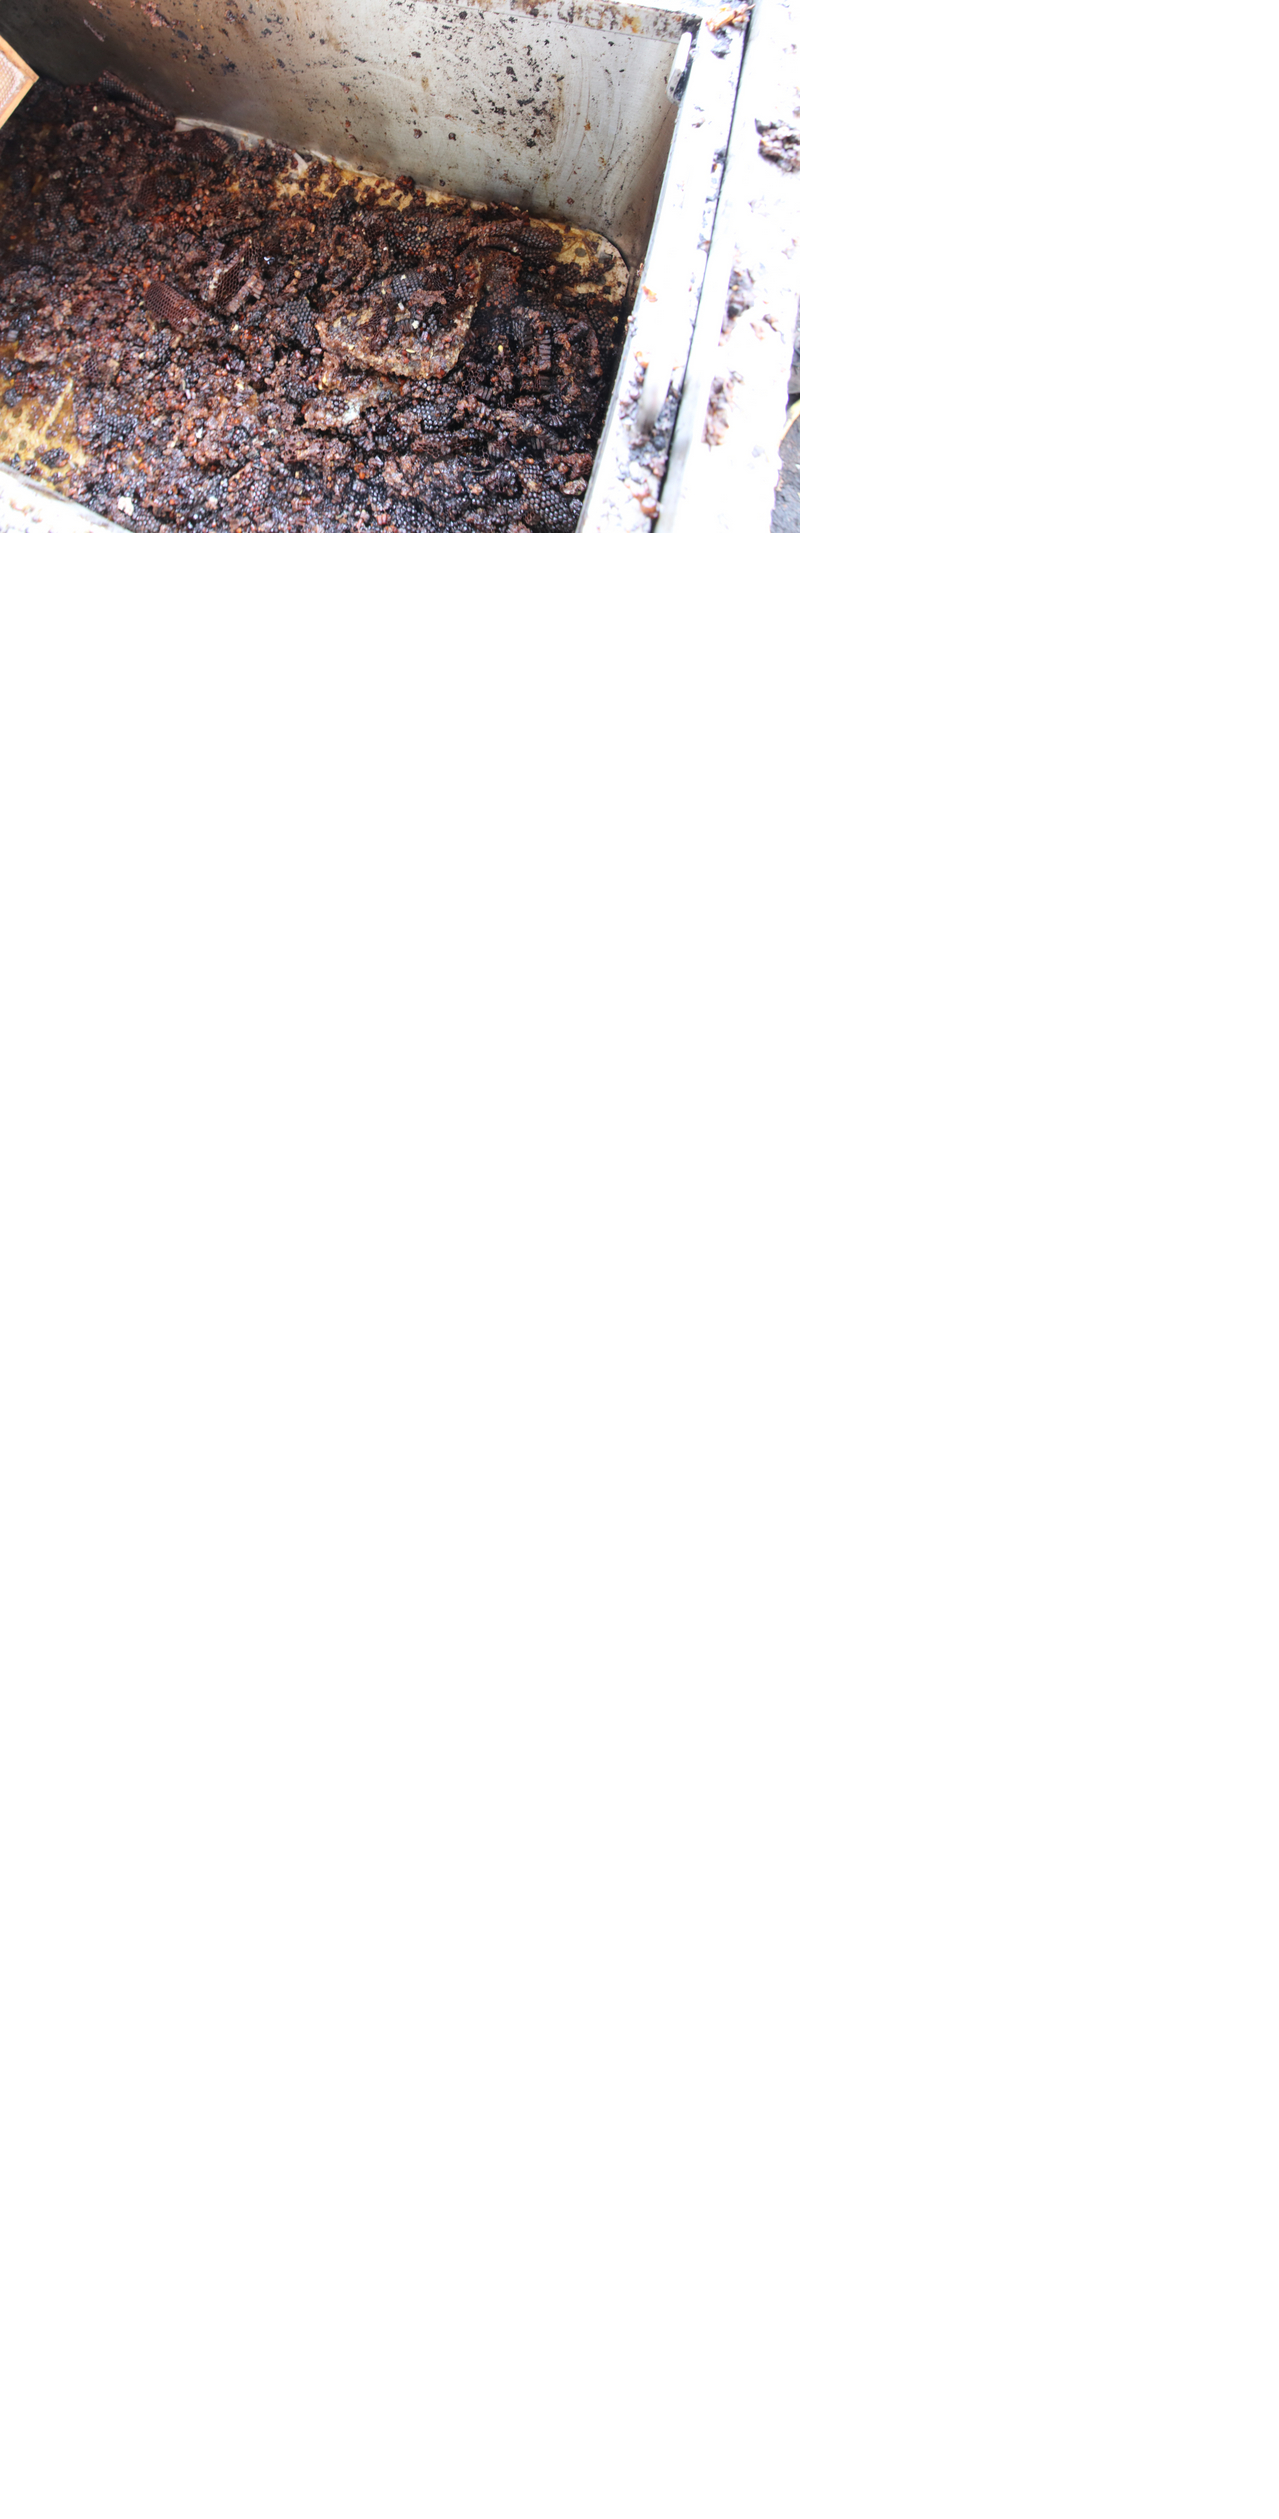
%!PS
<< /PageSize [1279 2519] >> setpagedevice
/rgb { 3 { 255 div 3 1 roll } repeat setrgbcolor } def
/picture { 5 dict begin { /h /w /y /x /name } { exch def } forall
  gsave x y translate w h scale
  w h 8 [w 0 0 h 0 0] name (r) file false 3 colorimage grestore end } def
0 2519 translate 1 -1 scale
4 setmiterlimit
255 255 255 rgb
0 0 1279 2519 rectfill
(img/1.rgb) 0 0 800 533 picture
showpage
